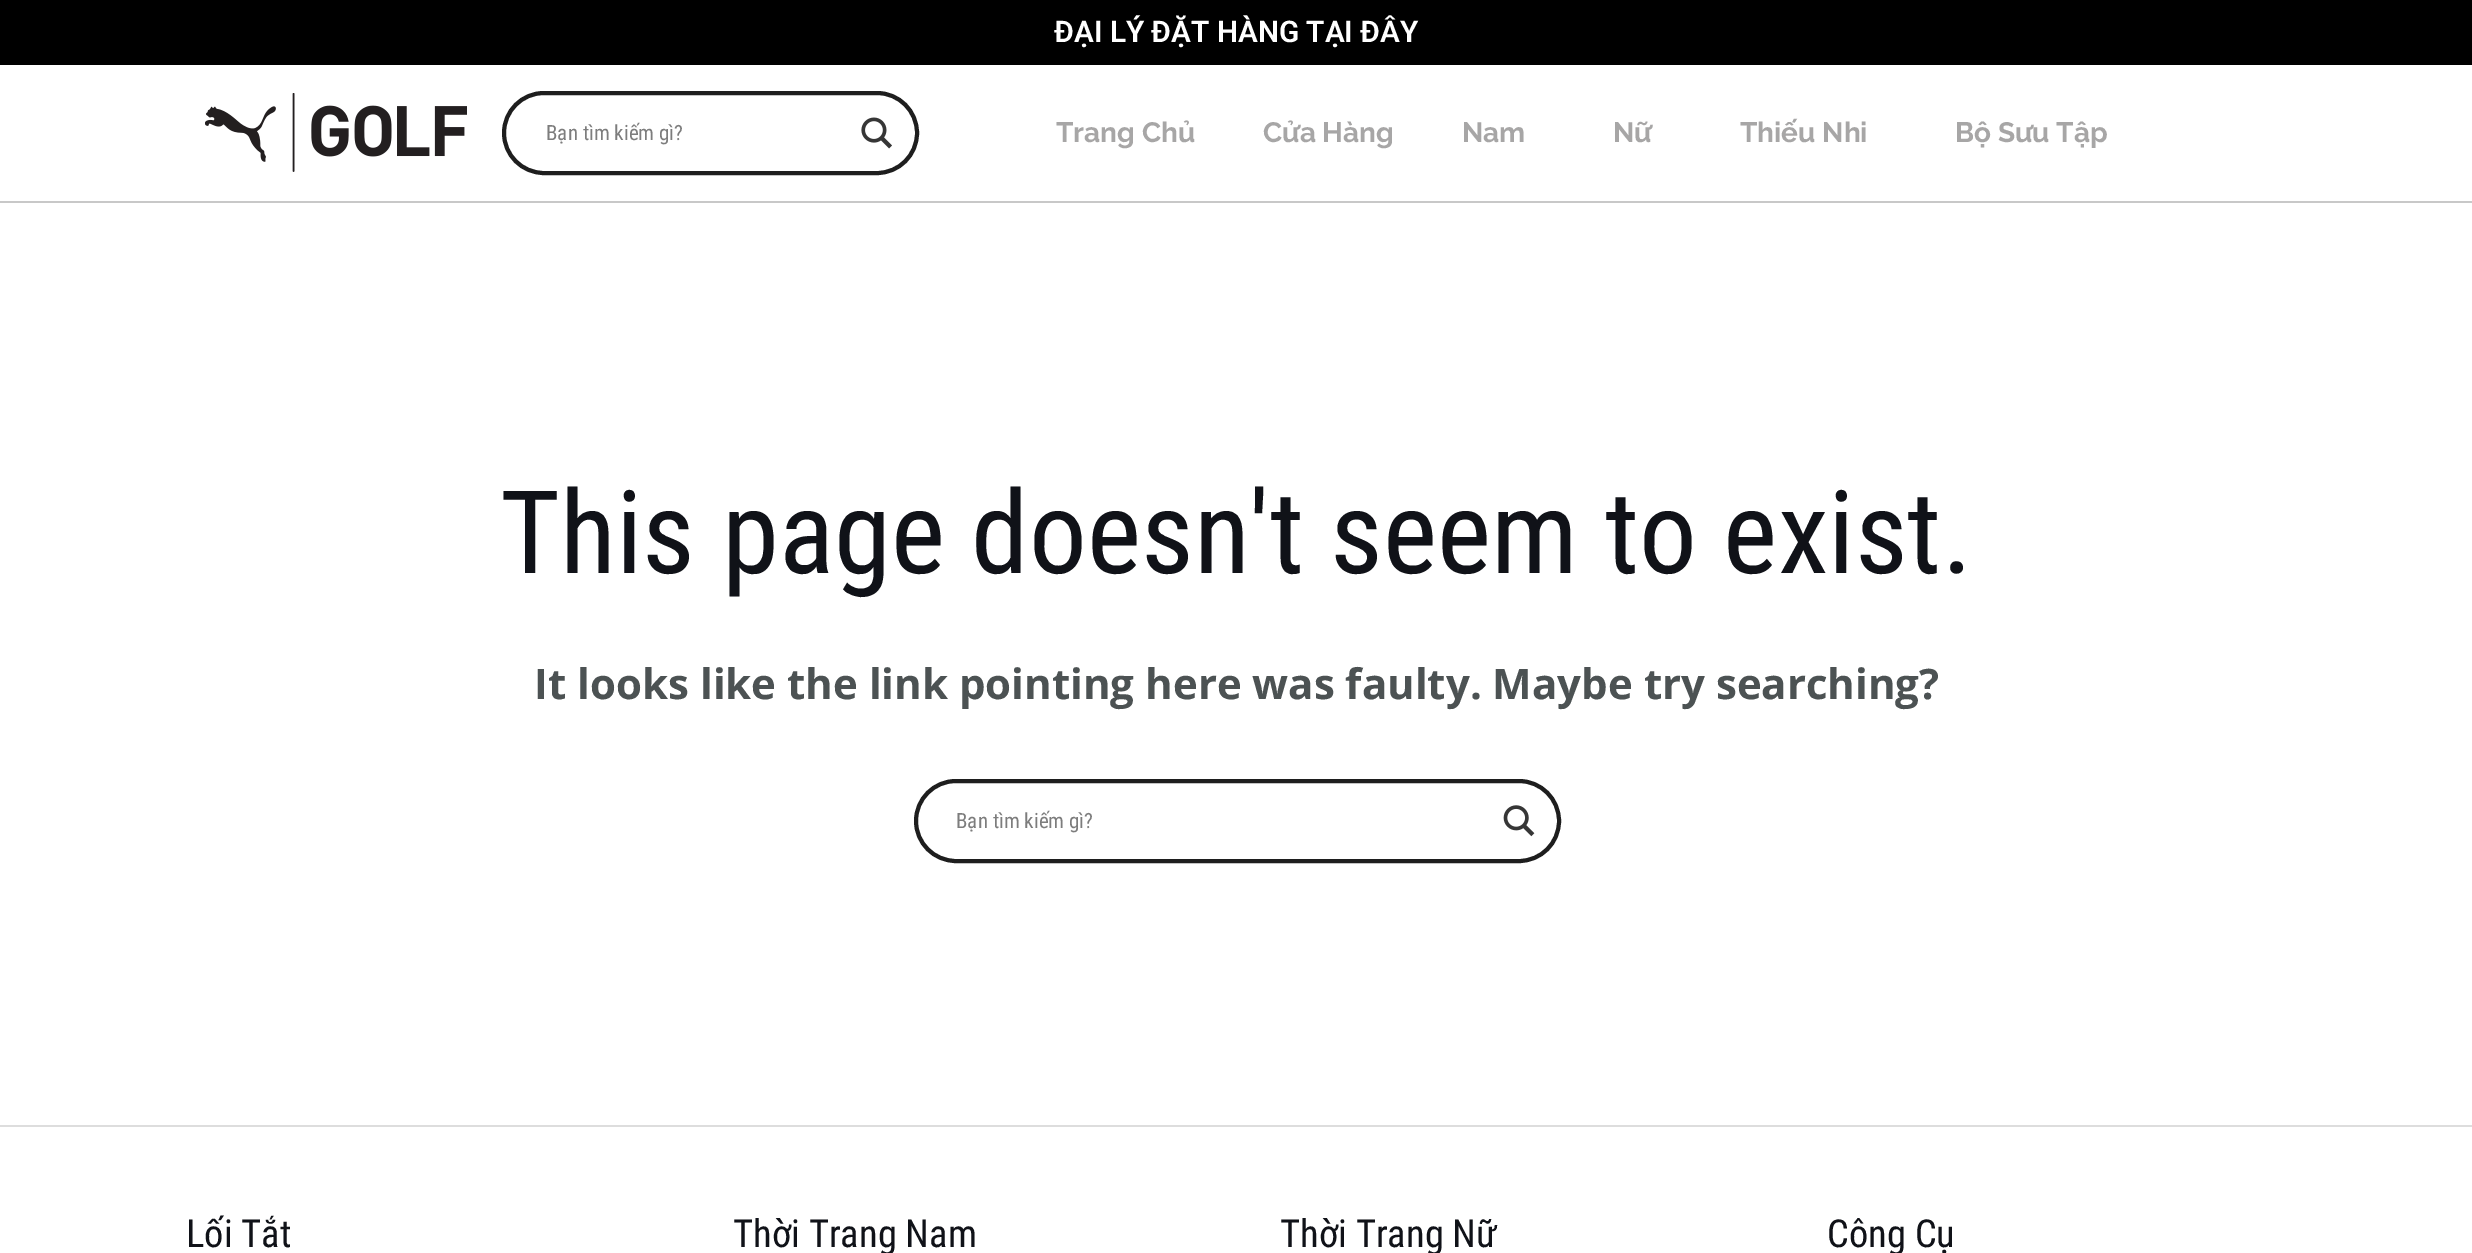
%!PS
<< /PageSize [2472 1253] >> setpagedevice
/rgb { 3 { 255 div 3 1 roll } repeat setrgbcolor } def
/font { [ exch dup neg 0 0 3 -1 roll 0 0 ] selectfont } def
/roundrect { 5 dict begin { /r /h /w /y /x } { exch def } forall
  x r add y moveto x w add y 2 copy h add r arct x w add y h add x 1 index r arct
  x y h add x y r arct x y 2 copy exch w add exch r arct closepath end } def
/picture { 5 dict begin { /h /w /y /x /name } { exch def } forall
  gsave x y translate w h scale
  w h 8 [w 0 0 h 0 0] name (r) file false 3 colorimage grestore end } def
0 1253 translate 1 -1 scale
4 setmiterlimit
255 255 255 rgb
0 0 2472 1253 rectfill
0 0 0 rgb
0 0 2472 65 rectfill
200 200 200 rgb
0 201 2472 2 rectfill
(img/1.rgb) 205 93 262 79 picture
30 30 30 rgb
4 setlinewidth
504 93 413 80 40 roundrect stroke
(img/2.rgb) 861 117 31 32 picture
916 781 643 80 40 roundrect stroke
(img/3.rgb) 1503 805 32 32 picture
221 221 221 rgb
0 1125 2472 2 rectfill
/Roboto-SemiBold 29.75 font
255 255 255 rgb
1054 42 moveto (ĐẠI LÝ ĐẶT HÀNG TẠI ĐÂY) show
/RobotoCondensed-Regular 21 font
125 125 125 rgb
546 140 moveto (Bạn tìm kiếm gì?) show
/Raleway-Bold 28 font
167 166 166 rgb
[
  [(Trang Chủ) 1056 142]
  [(Cửa Hàng) 1263 142]
  [(Nam) 1462 142]
  [(Nữ) 1613 142]
  [(Thiếu Nhi) 1740 142]
  [(Bộ Sưu Tập) 1955 142]
] { aload pop moveto show } forall
/RobotoCondensed-Regular 115.5 font
16 18 24 rgb
500 573 moveto (This page doesn't seem to exist.) show
/OpenSans-Bold 42 font
76 82 83 rgb
534 699 moveto (It looks like the link pointing here was faulty. Maybe try searching?) show
/RobotoCondensed-Regular 21 font
125 125 125 rgb
956 828 moveto (Bạn tìm kiếm gì?) show
/RobotoCondensed-Regular 38.5 font
16 18 24 rgb
[
  [(Lối Tắt) 186 1247]
  [(Thời Trang Nam) 733 1247]
  [(Thời Trang Nữ) 1280 1247]
  [(Công Cụ) 1827 1247]
] { aload pop moveto show } forall
showpage
